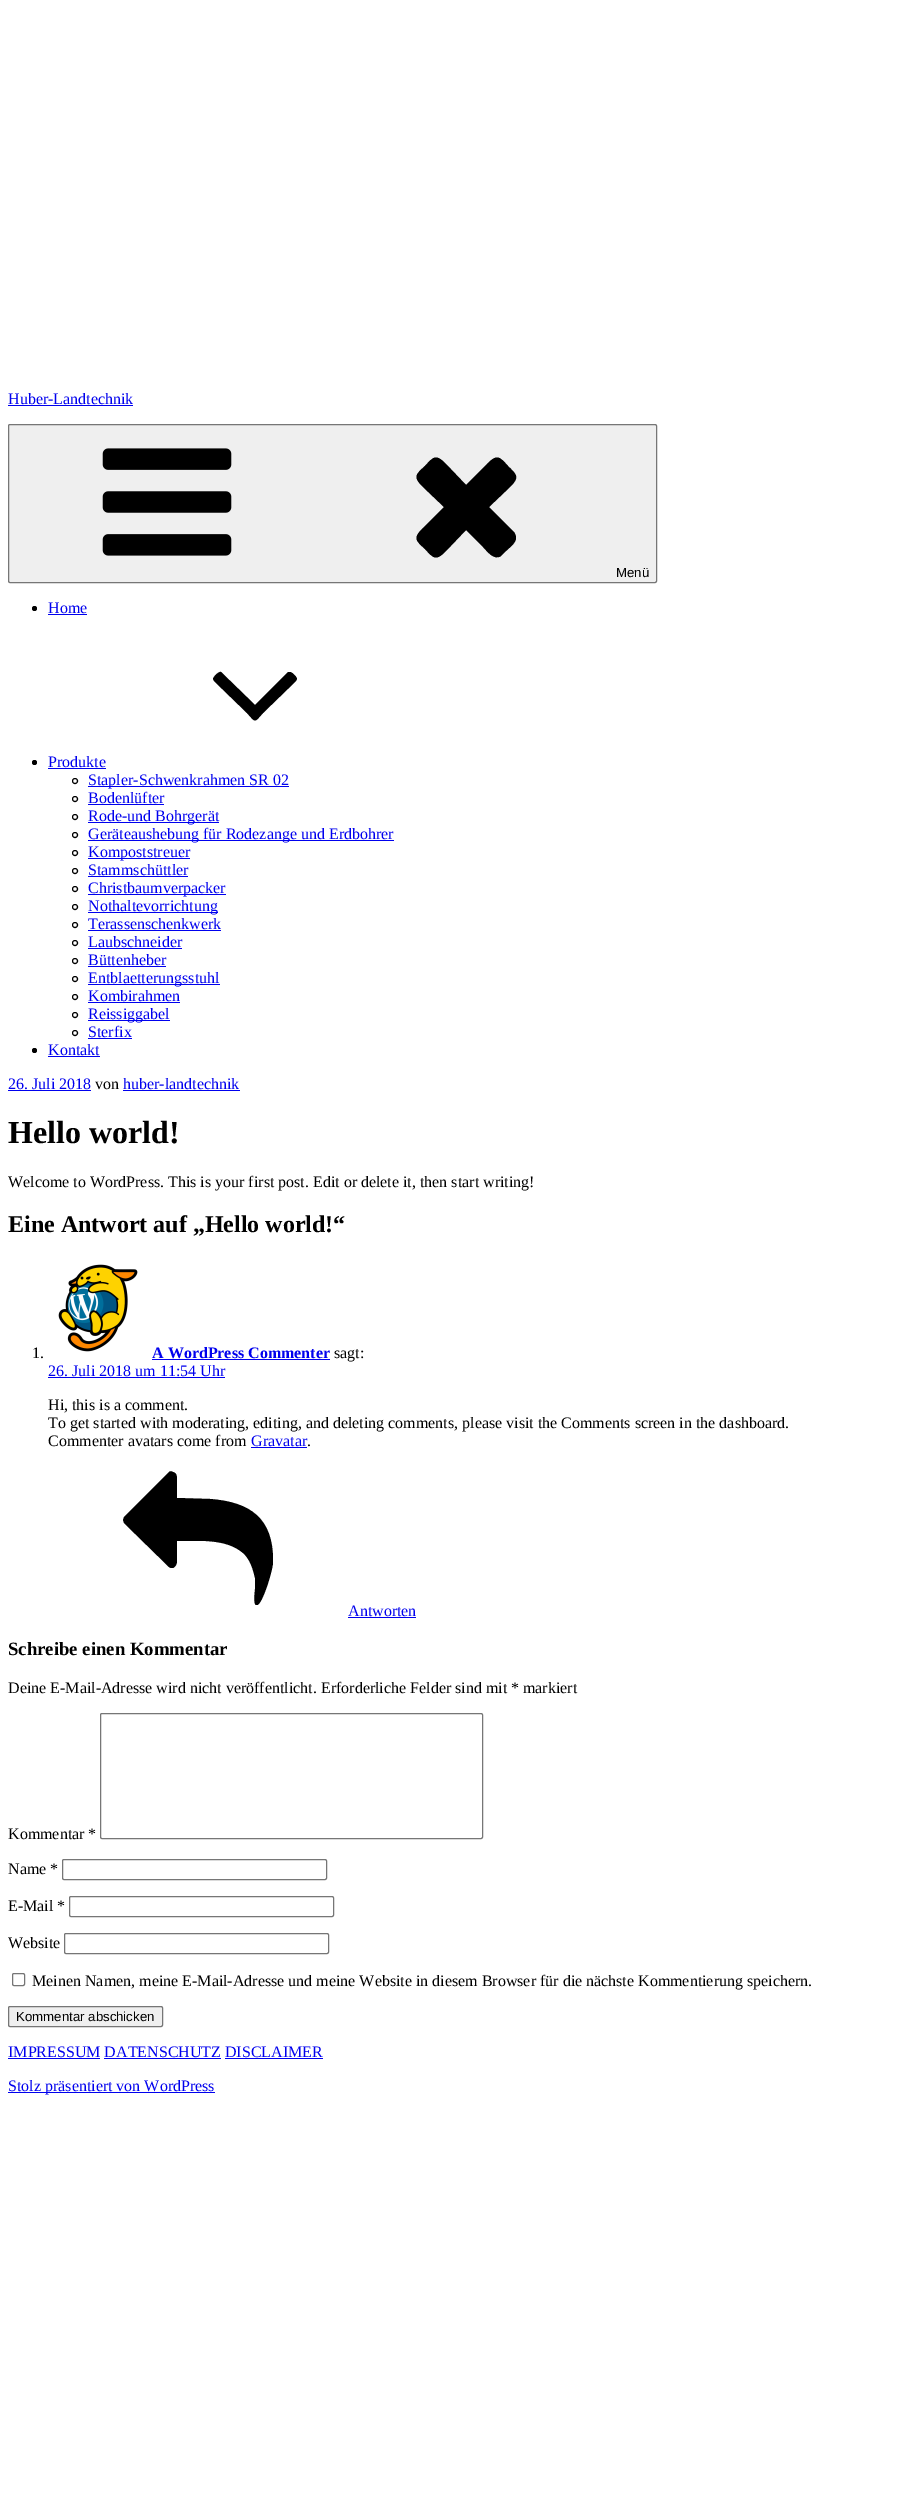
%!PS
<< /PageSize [918 2504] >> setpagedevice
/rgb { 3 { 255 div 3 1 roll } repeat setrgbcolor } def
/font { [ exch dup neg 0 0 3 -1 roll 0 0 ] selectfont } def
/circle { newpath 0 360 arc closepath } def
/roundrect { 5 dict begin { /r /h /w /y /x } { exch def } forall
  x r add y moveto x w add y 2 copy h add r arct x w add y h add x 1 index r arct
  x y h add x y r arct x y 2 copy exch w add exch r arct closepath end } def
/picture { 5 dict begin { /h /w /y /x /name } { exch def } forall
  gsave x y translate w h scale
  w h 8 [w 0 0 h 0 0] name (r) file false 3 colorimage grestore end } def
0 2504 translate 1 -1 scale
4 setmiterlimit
255 255 255 rgb
0 0 918 2504 rectfill
0 0 238 rgb
8 405 125 1 rectfill
239 239 239 rgb
8.5 424.5 648 158 1.5 roundrect gsave fill grestore
118 118 118 rgb
stroke
(img/1.rgb) 102 448 130 108 picture
0 0 0 rgb
516 538 moveto 516 543 510 547 506 551 curveto 501 556 lineto 494 561 487 551 483 547 curveto 466 530 lineto 446 551 lineto 436 561 434 559 425 549 curveto 415 540 413 538 423 528 curveto 444 507 lineto 423 487 lineto 413 477 415 475 425 466 curveto 434 456 436 454 446 464 curveto 466 485 lineto 487 464 lineto 497 454 499 456 508 466 curveto 517 475 520 477 510 487 curveto 489 507 lineto 514 532 lineto 515 534 516 535 516 538 curveto closepath fill
34.5 608.5 2.5 circle fill
0 0 238 rgb
48 614 39 1 rectfill
0 0 0 rgb
34.5 762.5 2.5 circle fill
0 0 238 rgb
48 768 58 1 rectfill
0 0 0 rgb
297 679 moveto 296 681 lineto 263 713 lineto 254 723 256 723 247 713 curveto 214 681 lineto 213 679 lineto 213 677 219 671 221 672 curveto 255 705 lineto 288 672 lineto 290 672 lineto 292 672 297 677 297 679 curveto closepath fill
75 781 2.5 circle stroke
0 0 238 rgb
88 786 201 1 rectfill
0 0 0 rgb
75 799 2.5 circle stroke
0 0 238 rgb
88 804 76 1 rectfill
0 0 0 rgb
75 817 2.5 circle stroke
0 0 238 rgb
88 822 131 1 rectfill
0 0 0 rgb
75 835 2.5 circle stroke
0 0 238 rgb
88 840 306 1 rectfill
0 0 0 rgb
75 853 2.5 circle stroke
0 0 238 rgb
88 858 102 1 rectfill
0 0 0 rgb
75 871 2.5 circle stroke
0 0 238 rgb
88 876 100 1 rectfill
0 0 0 rgb
75 889 2.5 circle stroke
0 0 238 rgb
88 894 138 1 rectfill
0 0 0 rgb
75 907 2.5 circle stroke
0 0 238 rgb
88 912 130 1 rectfill
0 0 0 rgb
75 925 2.5 circle stroke
0 0 238 rgb
88 930 133 1 rectfill
0 0 0 rgb
75 943 2.5 circle stroke
0 0 238 rgb
88 948 94 1 rectfill
0 0 0 rgb
75 961 2.5 circle stroke
0 0 238 rgb
88 966 78 1 rectfill
0 0 0 rgb
75 979 2.5 circle stroke
0 0 238 rgb
88 984 132 1 rectfill
0 0 0 rgb
75 997 2.5 circle stroke
0 0 238 rgb
88 1002 92 1 rectfill
0 0 0 rgb
75 1015 2.5 circle stroke
0 0 238 rgb
88 1020 82 1 rectfill
0 0 0 rgb
75 1033 2.5 circle stroke
0 0 238 rgb
88 1038 44 1 rectfill
0 0 0 rgb
34.5 1050.5 2.5 circle fill
[
  [48 1056 52 1 0 0 238]
  [8 1090 83 1 0 0 238]
  [123 1090 117 1 0 0 238]
] { aload pop rgb rectfill } forall
(img/2.rgb) 58 1264 80 88 picture
[
  [152 1359 178 1 0 0 238]
  [48 1377 177 1 0 0 238]
  [251 1447 56 1 0 0 238]
  [348 1617 68 1 0 0 238]
] { aload pop rgb rectfill } forall
0 0 0 rgb
273 1560 moveto 273 1563 lineto 272 1573 262 1605 257 1605 curveto 256 1605 lineto 253 1604 255 1591 255 1589 curveto 255 1578 lineto 253 1569 250 1559 243 1553 curveto 226 1538 197 1541 177 1541 curveto 177 1559 lineto 177 1562 177 1566 173 1568 curveto 171 1568 170 1568 169 1567 curveto 124 1523 lineto 123 1520 lineto 124 1517 lineto 169 1472 lineto 170 1471 171 1471 173 1472 curveto 177 1473 177 1477 177 1480 curveto 177 1498 lineto 210 1499 lineto 251 1502 273 1519 273 1560 curveto closepath fill
118 118 118 rgb
100.5 1713.5 382 125 1.5 roundrect stroke
62.5 1859.5 264 20 1.5 roundrect stroke
69.5 1896.5 264 20 1.5 roundrect stroke
64.5 1933.5 264 20 1.5 roundrect stroke
12.5 1973.5 12 12 1.5 roundrect stroke
239 239 239 rgb
8.5 2006.5 154 20 1.5 roundrect gsave fill grestore
118 118 118 rgb
stroke
[
  [8 2058 92 1 0 0 238]
  [104 2058 117 1 0 0 238]
  [225 2058 98 1 0 0 238]
  [8 2092 207 1 0 0 238]
] { aload pop rgb rectfill } forall
/LiberationSerif-Regular 16 font
8 404 moveto (Huber-Landtechnik) show
/LiberationSans-Regular 13.25 font
0 0 0 rgb
616 577 moveto (Menü) show
/LiberationSerif-Regular 16 font
0 0 238 rgb
[
  [(Home) 48 613]
  [(Produkte) 48 767]
  [(Stapler-Schwenkrahmen SR 02) 88 785]
  [(Bodenlüfter) 88 803]
  [(Rode-und Bohrgerät) 88 821]
  [(Geräteaushebung für Rodezange und Erdbohrer) 88 839]
  [(Kompoststreuer) 88 857]
  [(Stammschüttler) 88 875]
  [(Christbaumverpacker) 88 893]
  [(Nothaltevorrichtung) 88 911]
  [(Terassenschenkwerk) 88 929]
  [(Laubschneider) 88 947]
  [(Büttenheber) 88 965]
  [(Entblaetterungsstuhl) 88 983]
  [(Kombirahmen) 88 1001]
  [(Reissiggabel) 88 1019]
  [(Sterfix) 88 1037]
  [(Kontakt) 48 1055]
  [(26. Juli 2018) 8 1089]
] { aload pop moveto show } forall
0 0 0 rgb
95 1089 moveto (von) show
0 0 238 rgb
123 1089 moveto (huber-landtechnik) show
/LiberationSerif-Bold 32 font
0 0 0 rgb
8 1143 moveto (Hello world!) show
/LiberationSerif-Regular 16 font
8 1187 moveto (Welcome to WordPress. This is your first post. Edit or delete it, then start writing!) show
/LiberationSerif-Bold 24 font
8 1232 moveto (Eine Antwort auf „Hello world!“) show
/LiberationSerif-Regular 16 font
32 1358 moveto (1.) show
/LiberationSerif-Bold 16 font
0 0 238 rgb
152 1358 moveto (A WordPress Commenter) show
/LiberationSerif-Regular 16 font
0 0 0 rgb
334 1358 moveto (sagt:) show
0 0 238 rgb
48 1376 moveto (26. Juli 2018 um 11:54 Uhr) show
0 0 0 rgb
[
  [(Hi, this is a comment.) 48 1410]
  [(To get started with moderating, editing, and deleting comments, please visit the Comments screen in the dashboard.) 48 1428]
  [(Commenter avatars come from) 48 1446]
] { aload pop moveto show } forall
0 0 238 rgb
251 1446 moveto (Gravatar) show
0 0 0 rgb
307 1446 moveto (.) show
0 0 238 rgb
348 1616 moveto (Antworten) show
/LiberationSerif-Bold 18.75 font
0 0 0 rgb
8 1655 moveto (Schreibe einen Kommentar) show
/LiberationSerif-Regular 16 font
[
  [(Deine E-Mail-Adresse wird nicht veröffentlicht. Erforderliche Felder sind mit * markiert) 8 1693]
  [(Kommentar *) 8 1839]
  [(Name *) 8 1874]
  [(E-Mail *) 8 1911]
  [(Website) 8 1948]
  [(Meinen Namen, meine E-Mail-Adresse und meine Website in diesem Browser für die nächste Kommentierung speichern.) 32 1986]
] { aload pop moveto show } forall
/LiberationSans-Regular 13.25 font
16 2021 moveto (Kommentar abschicken) show
/LiberationSerif-Regular 16 font
0 0 238 rgb
8 2057 moveto (IMPRESSUM DATENSCHUTZ DISCLAIMER) show
8 2091 moveto (Stolz präsentiert von WordPress) show
showpage
